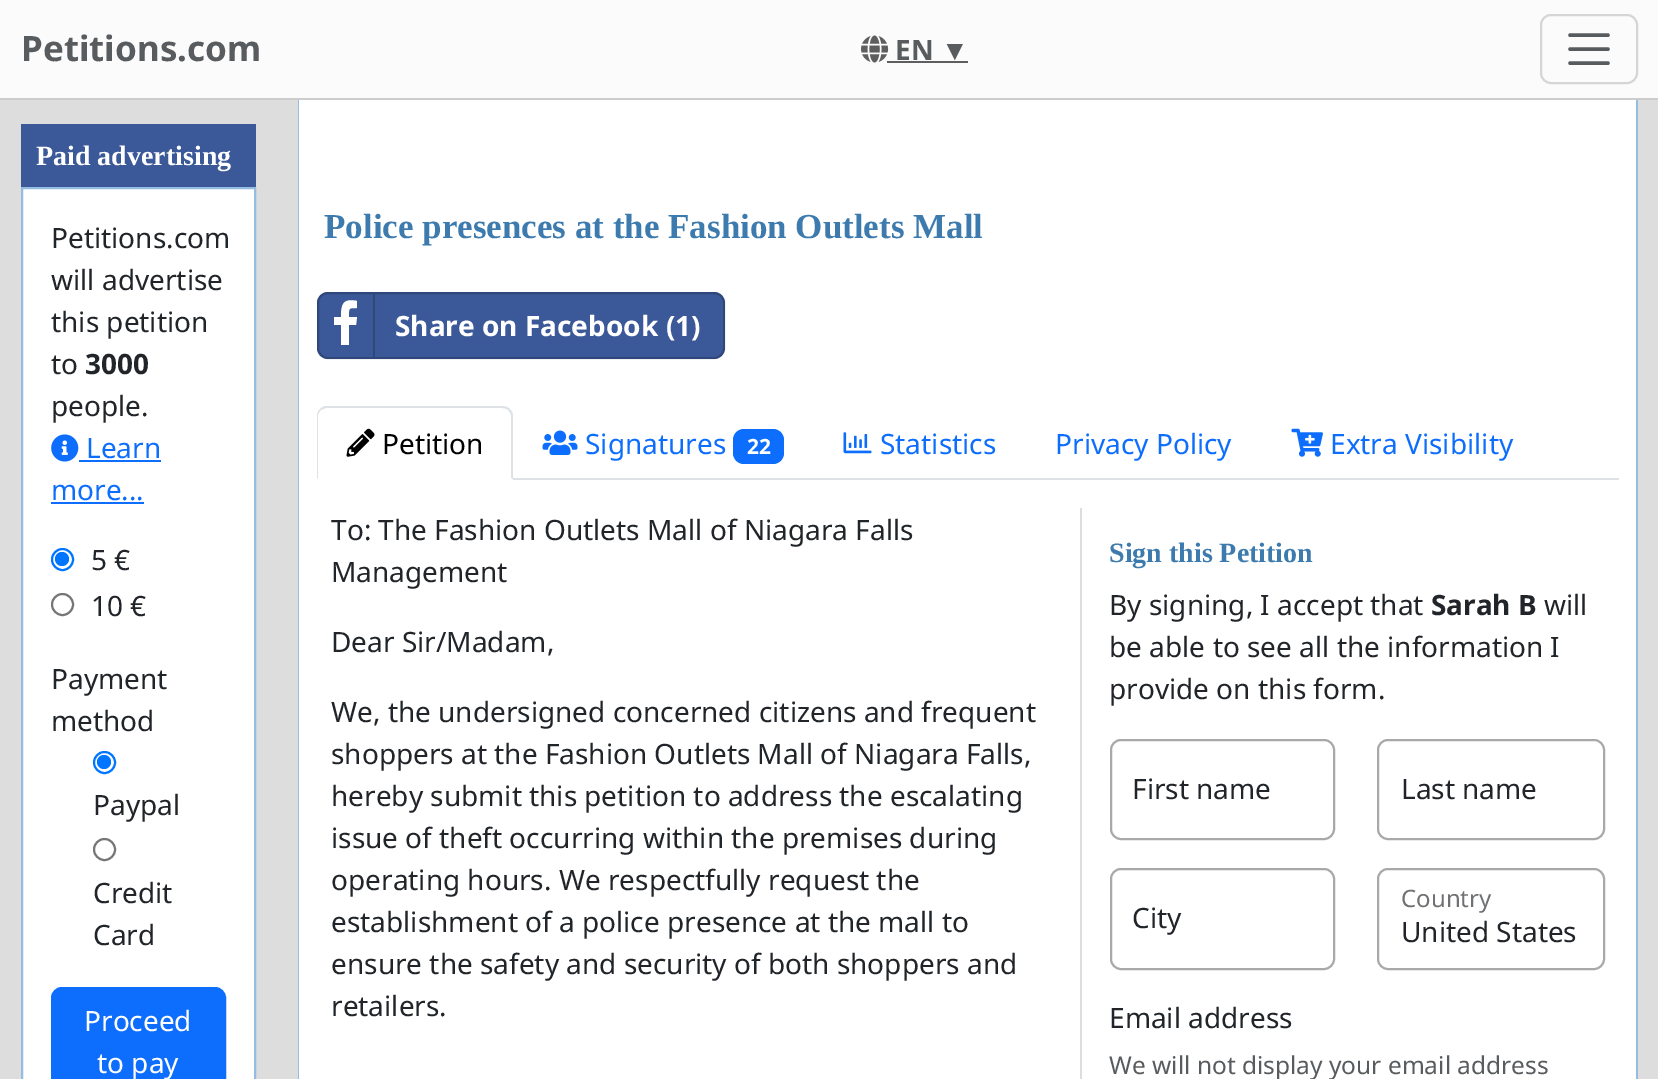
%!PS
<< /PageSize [1658 1079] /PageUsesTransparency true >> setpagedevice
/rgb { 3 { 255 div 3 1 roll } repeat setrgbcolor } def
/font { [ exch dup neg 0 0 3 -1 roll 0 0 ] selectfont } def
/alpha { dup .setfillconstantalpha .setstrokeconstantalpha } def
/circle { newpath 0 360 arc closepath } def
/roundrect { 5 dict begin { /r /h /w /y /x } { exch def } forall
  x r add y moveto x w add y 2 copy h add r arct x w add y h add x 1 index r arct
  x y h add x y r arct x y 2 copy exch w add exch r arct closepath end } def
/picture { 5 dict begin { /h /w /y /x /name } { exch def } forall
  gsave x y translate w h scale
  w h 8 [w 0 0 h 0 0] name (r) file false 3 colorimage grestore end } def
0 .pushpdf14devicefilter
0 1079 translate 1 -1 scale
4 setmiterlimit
221 221 221 rgb
0 0 1658 1079 rectfill
251 251 251 rgb
0 0 1658 98 rectfill
204 204 204 rgb
0 98 1658 2 rectfill
(img/1.rgb) 861 35 28 28 picture
94 94 94 rgb
887 61 81 2 rectfill
213 213 213 rgb
2 setlinewidth
1541 15 96 68 10 roundrect stroke
88 91 94 rgb
3.5 setlinewidth
1 setlinecap
1570 35 moveto 1608 35 lineto 1570 49 moveto 1608 49 lineto 1570 63 moveto 1608 63 lineto stroke
59 89 152 rgb
21 124 235 63 rectfill
255 255 255 rgb
22 188 moveto 255 188 lineto 255 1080 lineto 22 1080 lineto closepath gsave fill grestore
149 188 226 rgb
2 setlinewidth
0 setlinecap
stroke
(img/2.rgb) 51 434 28 28 picture
13 110 253 rgb
79 460 82 2 rectfill
51 502 93 2 rectfill
0 117 255 rgb
62.5 559.5 10.5 circle stroke
62 559 7 circle fill
118 118 118 rgb
62.5 604.5 10.5 circle stroke
0 117 255 rgb
104.5 762.5 10.5 circle stroke
104 762 7 circle fill
118 118 118 rgb
104.5 849.5 10.5 circle stroke
13 110 253 rgb
52 988 173 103 10 roundrect gsave fill grestore
stroke
255 255 255 rgb
299 100 1337 979 rectfill
149 188 226 rgb
298 100 moveto 1638 100 lineto 1638 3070 lineto 1638 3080 1629 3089 1619 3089 curveto 317 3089 lineto 306 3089 298 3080 298 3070 curveto closepath 299 100 moveto 1636 100 lineto 1636 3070 lineto 1636 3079 1628 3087 1619 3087 curveto 317 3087 lineto 307 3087 299 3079 299 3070 curveto closepath eofill
59 89 152 rgb
317 292 408 67 11 roundrect fill
0.2 alpha
0 0 0 rgb
318 293 406 65 10 roundrect stroke
1 alpha
47 71 122 rgb
373 294 2 63 rectfill
255 255 255 rgb
341 345 moveto 341 325 lineto 334 325 lineto 334 317 lineto 341 317 lineto 341 304 343 298 357 301 curveto 357 308 lineto 348 308 349 308 349 317 curveto 357 317 lineto 356 325 lineto 349 325 lineto 349 345 lineto closepath fill
222 226 230 rgb
513 478 1106 2 rectfill
327 406 moveto 324 406 322 407 320 409 curveto 321 410 lineto 323 409 325 408 327 408 curveto 502 408 lineto 504 408 507 409 508 410 curveto 510 409 lineto 508 407 505 406 502 406 curveto closepath fill
510 409 moveto 511 410 512 412 513 414 curveto 513 480 lineto 511 478 lineto 511 416 lineto 511 414 510 412 508 410 curveto closepath fill
255 255 255 rgb
513 480 moveto 317 480 lineto 318 478 lineto 511 478 lineto closepath fill
222 226 230 rgb
320 409 moveto 318 411 317 413 317 416 curveto 317 479 lineto 318 478 lineto 318 416 lineto 318 414 319 412 321 410 curveto closepath fill
(img/3.rgb) 346 428 29 29 picture
(img/4.rgb) 542 430 36 25 picture
13 110 253 rgb
733 429 51 35 11 roundrect fill
(img/5.rgb) 843 432 29 22 picture
(img/6.rgb) 1291 428 32 29 picture
221 221 221 rgb
1080 508 2 571 rectfill
169 169 169 rgb
1111 740 223 99 10 roundrect stroke
1378 740 226 99 10 roundrect stroke
1111 869 223 100 10 roundrect stroke
1378 869 226 100 10 roundrect stroke
/NotoSans-Bold 35 font
89 92 95 rgb
21 61 moveto (Petitions.com) show
/NotoSans-Bold 28 font
895 60 moveto (EN) show
/LiberationSans-Regular 28 font
941 60 moveto (▼) show
/LiberationSerif-Bold 28 font
255 255 255 rgb
36 165 moveto (Paid advertising) show
/NotoSans-Regular 28 font
33 37 41 rgb
[
  [(Petitions.com) 51 248]
  [(will advertise) 51 290]
  [(this petition) 51 332]
  [(to) 51 374]
] { aload pop moveto show } forall
/NotoSans-Bold 28 font
85 374 moveto (3000) show
/NotoSans-Regular 28 font
51 416 moveto (people.) show
13 110 253 rgb
86 458 moveto (Learn) show
51 500 moveto (more...) show
33 37 41 rgb
[
  [(5 €) 91 570]
  [(10 €) 91 616]
  [(Payment) 51 689]
  [(method) 51 731]
  [(Paypal) 93 815]
  [(Credit) 93 903]
  [(Card) 93 945]
] { aload pop moveto show } forall
255 255 255 rgb
84 1031 moveto (Proceed) show
97 1073 moveto (to pay) show
/LiberationSerif-Bold 35 font
61 123 174 rgb
324 238 moveto (Police presences at the Fashion Outlets Mall) show
/NotoSans-Bold 28 font
255 255 255 rgb
395 336 moveto (Share on Facebook \(1\)) show
/NotoSans-Regular 28 font
0 0 0 rgb
382 454 moveto (Petition) show
13 110 253 rgb
585 454 moveto (Signatures) show
/NotoSans-Bold 21 font
255 255 255 rgb
747 454 moveto (22) show
/NotoSans-Regular 28 font
13 110 253 rgb
[
  [(Statistics) 880 454]
  [(Privacy Policy) 1055 454]
  [(Extra Visibility) 1330 454]
] { aload pop moveto show } forall
33 37 41 rgb
[
  [(To: The Fashion Outlets Mall of Niagara Falls) 331 540]
  [(Management) 331 582]
  [(Dear Sir/Madam,) 331 652]
  [(We, the undersigned concerned citizens and frequent) 331 722]
  [(shoppers at the Fashion Outlets Mall of Niagara Falls,) 331 764]
  [(hereby submit this petition to address the escalating) 331 806]
  [(issue of theft occurring within the premises during) 331 848]
  [(operating hours. We respectfully request the) 331 890]
  [(establishment of a police presence at the mall to) 331 932]
  [(ensure the safety and security of both shoppers and) 331 974]
  [(retailers.) 331 1016]
] { aload pop moveto show } forall
/LiberationSerif-Bold 28 font
61 123 174 rgb
1109 562 moveto (Sign this Petition) show
/NotoSans-Regular 28 font
33 37 41 rgb
1109 615 moveto (By signing, I accept that) show
/NotoSans-Bold 28 font
1431 615 moveto (Sarah B) show
/NotoSans-Regular 28 font
[
  [(will) 1544 615]
  [(be able to see all the information I) 1109 657]
  [(provide on this form.) 1109 699]
  [(First name) 1132 799]
  [(Last name) 1401 799]
  [(City) 1132 928]
] { aload pop moveto show } forall
/NotoSans-Regular 24 font
111 113 116 rgb
1401 907 moveto (Country) show
/NotoSans-Regular 28 font
33 37 41 rgb
1401 942 moveto (United States) show
1109 1028 moveto (Email address) show
/NotoSans-Regular 24.5 font
89 92 95 rgb
1109 1074 moveto (We will not display your email address) show
.poppdf14devicefilter showpage
